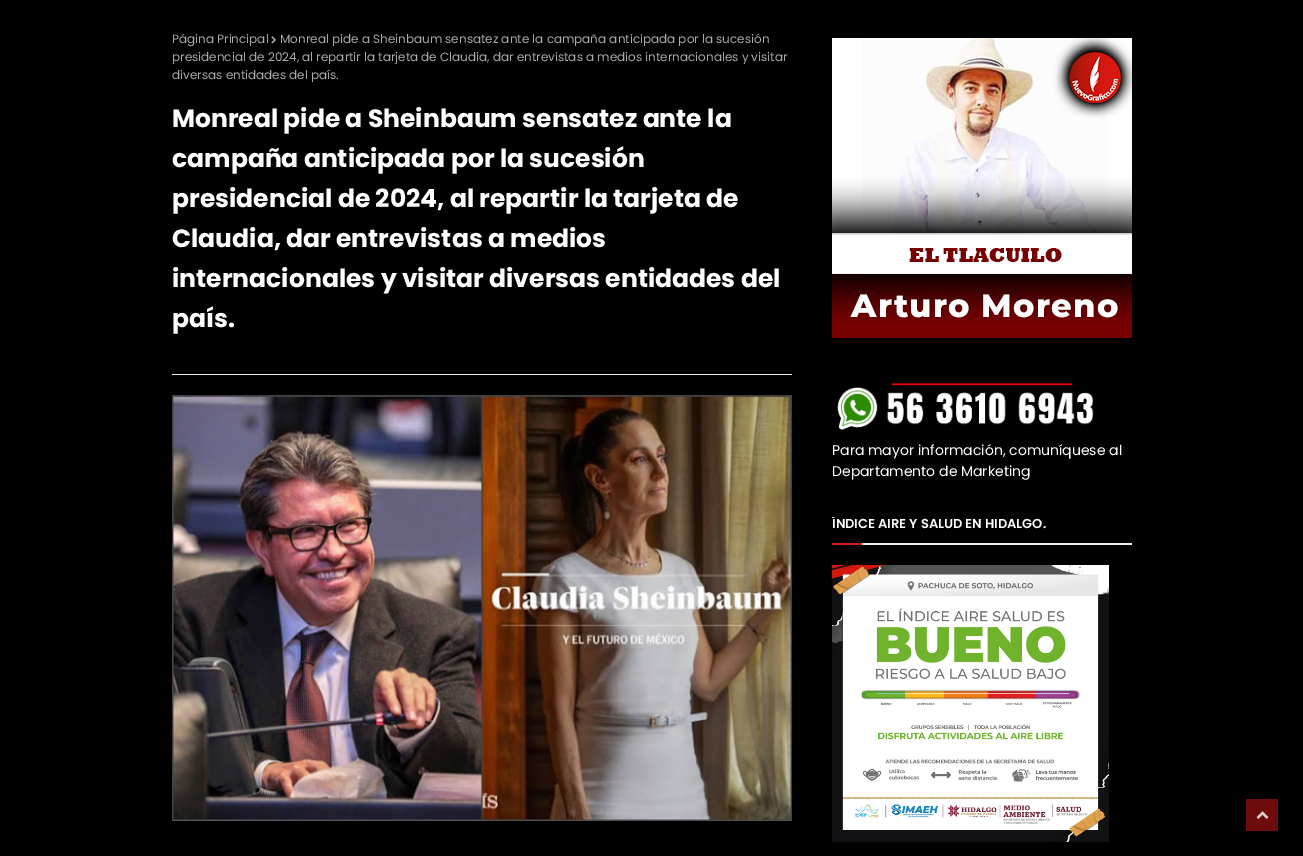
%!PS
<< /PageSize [1303 856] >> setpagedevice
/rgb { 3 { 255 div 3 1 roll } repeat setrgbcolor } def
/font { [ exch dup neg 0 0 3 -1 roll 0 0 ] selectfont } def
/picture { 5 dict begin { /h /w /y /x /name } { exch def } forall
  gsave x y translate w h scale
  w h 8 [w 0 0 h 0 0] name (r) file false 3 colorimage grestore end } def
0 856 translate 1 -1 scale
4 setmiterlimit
0 0 0 rgb
0 0 1303 856 rectfill
(img/1.rgb) 271 36 5 8 picture
235 235 235 rgb
172 374 620 1 rectfill
(img/2.rgb) 172 395 620 426 picture
(img/3.rgb) 832 38 300 300 picture
(img/4.rgb) 837 382 257 48 picture
862 543 270 2 rectfill
219 22 22 rgb
832 543 30 2 rectfill
(img/5.rgb) 832 565 277 277 picture
110 11 11 rgb
1246 799 32 32 rectfill
(img/6.rgb) 1256 811 13 8 picture
/Poppins-Regular 12 font
170 170 170 rgb
[
  [(Página Principal) 172 43]
  [(Monreal pide a Sheinbaum sensatez ante la campaña anticipada por la sucesión) 280 43]
  [(presidencial de 2024, al repartir la tarjeta de Claudia, dar entrevistas a medios internacionales y visitar) 172 61]
  [(diversas entidades del país.) 172 79]
] { aload pop moveto show } forall
/Poppins-Bold 25 font
255 255 255 rgb
[
  [(Monreal pide a Sheinbaum sensatez ante la) 172 127]
  [(campaña anticipada por la sucesión) 172 167]
  [(presidencial de 2024, al repartir la tarjeta de) 172 207]
  [(Claudia, dar entrevistas a medios) 172 247]
  [(internacionales y visitar diversas entidades del) 172 287]
  [(país.) 172 327]
] { aload pop moveto show } forall
/Poppins-Regular 14 font
832 455 moveto (Para mayor información, comuníquese al) show
832 476 moveto (Departamento de Marketing) show
gsave
832 517 300 331 rectclip
/Poppins-SemiBold 13 font
832 528 moveto (ÍNDICE AIRE Y SALUD EN HIDALGO.) show
grestore
showpage
